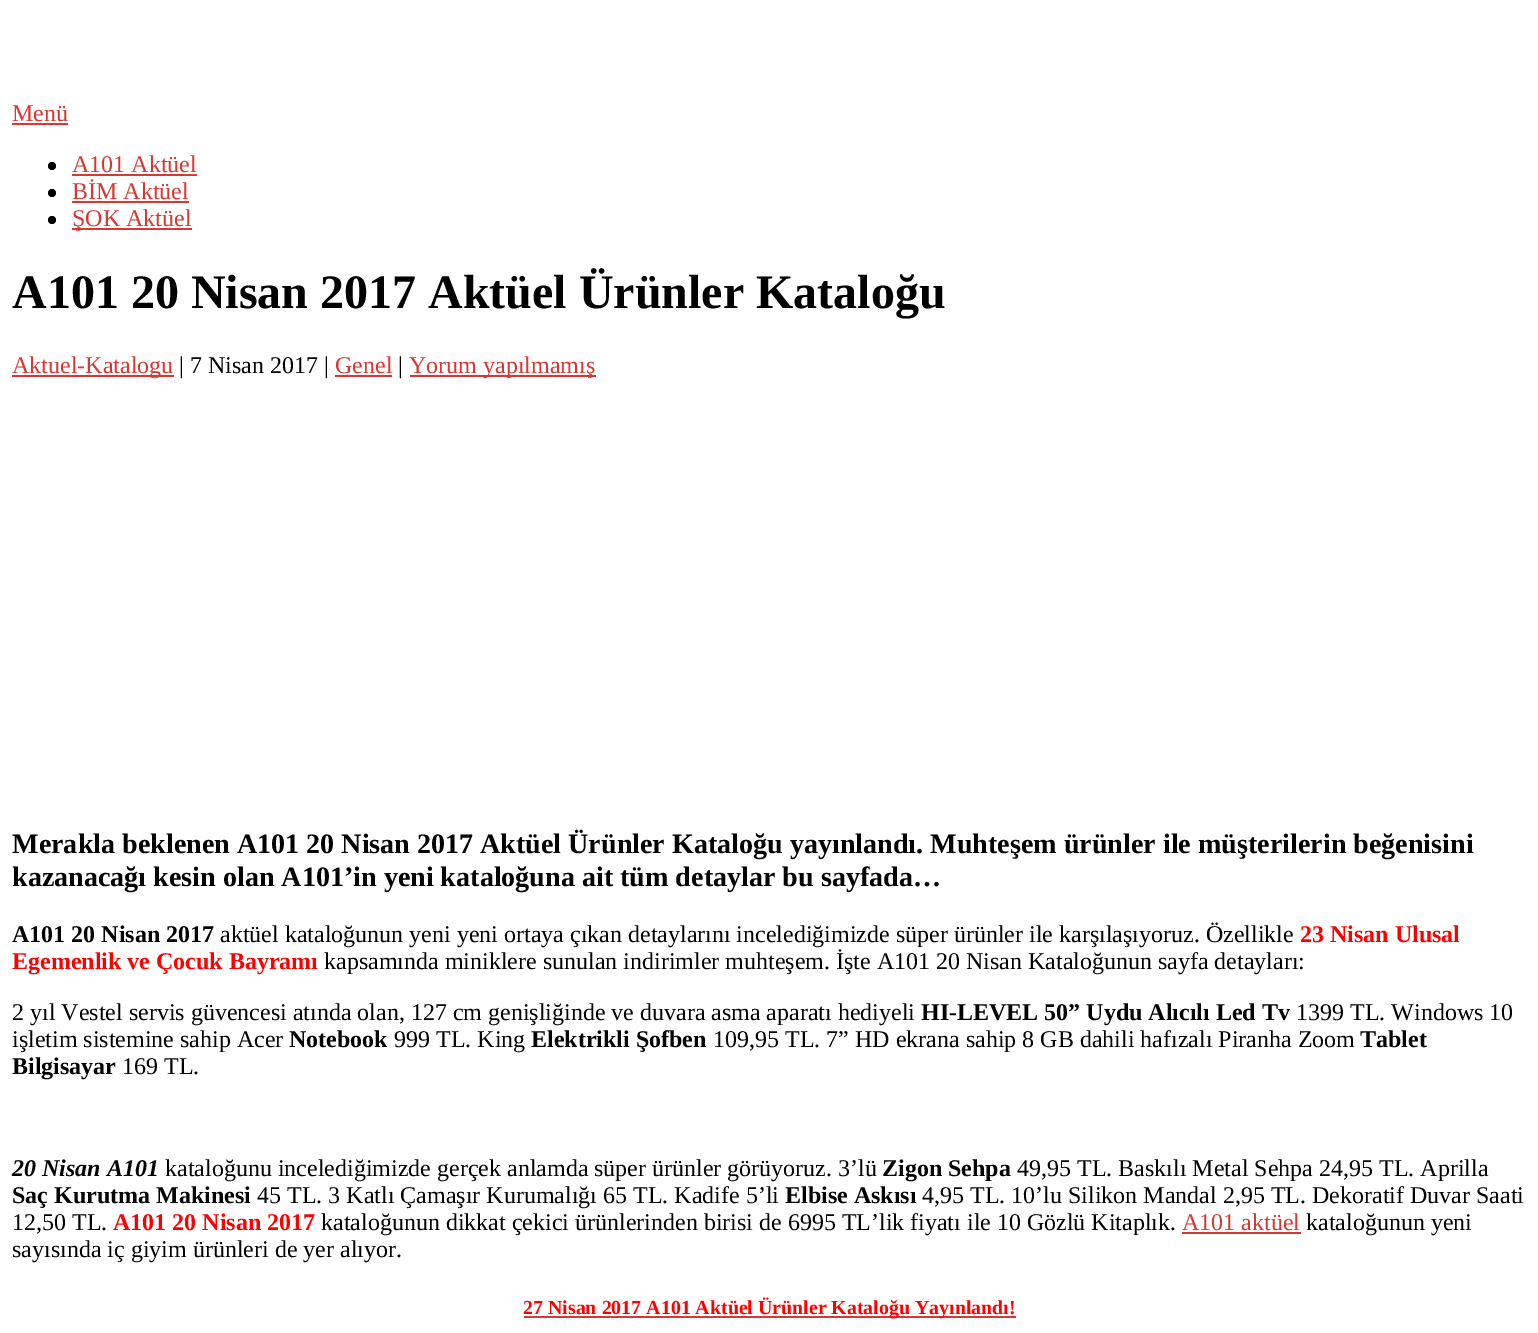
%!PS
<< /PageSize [1538 1333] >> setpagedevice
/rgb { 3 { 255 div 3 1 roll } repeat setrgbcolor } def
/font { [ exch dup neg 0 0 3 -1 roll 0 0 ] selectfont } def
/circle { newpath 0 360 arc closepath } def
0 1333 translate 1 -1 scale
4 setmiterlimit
255 255 255 rgb
0 0 1538 1333 rectfill
214 56 51 rgb
12 123 56 2 rectfill
0 0 0 rgb
52 166 4 circle fill
214 56 51 rgb
72 174 125 2 rectfill
0 0 0 rgb
52 193 4 circle fill
214 56 51 rgb
72 201 117 2 rectfill
0 0 0 rgb
52 220 4 circle fill
[
  [72 228 120 2 214 56 51]
  [12 375 162 2 214 56 51]
  [335 375 57 2 214 56 51]
  [410 375 186 2 214 56 51]
  [1182 1232 119 2 214 56 51]
  [524 1316 492 2 214 56 51]
] { aload pop rgb rectfill } forall
/LiberationSerif-Regular 24 font
[
  [(Menü) 12 121]
  [(A101 Aktüel) 72 172]
  [(BİM Aktüel) 72 199]
  [(ŞOK Aktüel) 72 226]
] { aload pop moveto show } forall
/LiberationSerif-Bold 48 font
0 0 0 rgb
12 308 moveto (A101 20 Nisan 2017 Aktüel Ürünler Kataloğu) show
/LiberationSerif-Regular 24 font
214 56 51 rgb
12 373 moveto (Aktuel-Katalogu) show
0 0 0 rgb
179 373 moveto (| 7 Nisan 2017 |) show
214 56 51 rgb
335 373 moveto (Genel) show
0 0 0 rgb
398 373 moveto (|) show
214 56 51 rgb
409 373 moveto (Yorum yapılmamış) show
/LiberationSerif-Bold 28.1 font
0 0 0 rgb
[
  [(Merakla beklenen A101 20 Nisan 2017) 12 853]
  [(Aktüel Ürünler Kataloğu yayınlandı. Muhteşem ürünler ile müşterilerin beğenisini) 480 853]
  [(kazanacağı kesin olan A101’in yeni kataloğuna ait tüm detaylar bu sayfada…) 12 886]
] { aload pop moveto show } forall
/LiberationSerif-Bold 24 font
12 942 moveto (A101 20 Nisan 2017) show
/LiberationSerif-Regular 24 font
220 942 moveto (aktüel kataloğunun yeni yeni ortaya çıkan detaylarını incelediğimizde süper ürünler ile karşılaşıyoruz. Özellikle) show
/LiberationSerif-Bold 24 font
255 0 0 rgb
1300 942 moveto (23 Nisan Ulusal) show
12 969 moveto (Egemenlik ve Çocuk Bayramı) show
/LiberationSerif-Regular 24 font
0 0 0 rgb
324 969 moveto (kapsamında miniklere sunulan indirimler muhteşem. İşte A101 20 Nisan Kataloğunun sayfa detayları:) show
12 1020 moveto (2 yıl Vestel servis güvencesi atında olan, 127 cm genişliğinde ve duvara asma aparatı hediyeli) show
/LiberationSerif-Bold 24 font
921 1020 moveto (HI-LEVEL 50” Uydu Alıcılı Led Tv) show
/LiberationSerif-Regular 24 font
1296 1020 moveto (1399 TL. Windows 10) show
12 1047 moveto (işletim sistemine sahip Acer) show
/LiberationSerif-Bold 24 font
289 1047 moveto (Notebook) show
/LiberationSerif-Regular 24 font
394 1047 moveto (999 TL. King) show
/LiberationSerif-Bold 24 font
531 1047 moveto (Elektrikli Şofben) show
/LiberationSerif-Regular 24 font
713 1047 moveto (109,95 TL. 7” HD ekrana sahip 8 GB dahili hafızalı Piranha Zoom) show
/LiberationSerif-Bold 24 font
1360 1047 moveto (Tablet) show
12 1074 moveto (Bilgisayar) show
/LiberationSerif-Regular 24 font
122 1074 moveto (169 TL.) show
/LiberationSerif-BoldItalic 24 font
12 1176 moveto (20 Nisan A101) show
/LiberationSerif-Regular 24 font
165 1176 moveto (kataloğunu incelediğimizde gerçek anlamda süper ürünler görüyoruz. 3’lü) show
/LiberationSerif-Bold 24 font
882 1176 moveto (Zigon Sehpa) show
/LiberationSerif-Regular 24 font
1017 1176 moveto (49,95 TL. Baskılı Metal Sehpa 24,95 TL. Aprilla) show
/LiberationSerif-Bold 24 font
12 1203 moveto (Saç Kurutma Makinesi) show
/LiberationSerif-Regular 24 font
257 1203 moveto (45 TL. 3 Katlı Çamaşır Kurumalığı 65 TL. Kadife 5’li) show
/LiberationSerif-Bold 24 font
785 1203 moveto (Elbise Askısı) show
/LiberationSerif-Regular 24 font
922 1203 moveto (4,95 TL. 10’lu Silikon Mandal 2,95 TL. Dekoratif Duvar Saati) show
12 1230 moveto (12,50 TL.) show
/LiberationSerif-Bold 24 font
255 0 0 rgb
113 1230 moveto (A101 20 Nisan 2017) show
/LiberationSerif-Regular 24 font
0 0 0 rgb
321 1230 moveto (kataloğunun dikkat çekici ürünlerinden birisi de 6995 TL’lik fiyatı ile 10 Gözlü Kitaplık.) show
214 56 51 rgb
1182 1230 moveto (A101 aktüel) show
0 0 0 rgb
1306 1230 moveto (kataloğunun yeni) show
12 1257 moveto (sayısında iç giyim ürünleri de yer alıyor.) show
/LiberationSerif-Bold 19.9 font
255 0 0 rgb
523 1314 moveto (27 Nisan 2017 A101 Aktüel Ürünler Kataloğu Yayınlandı!) show
showpage
